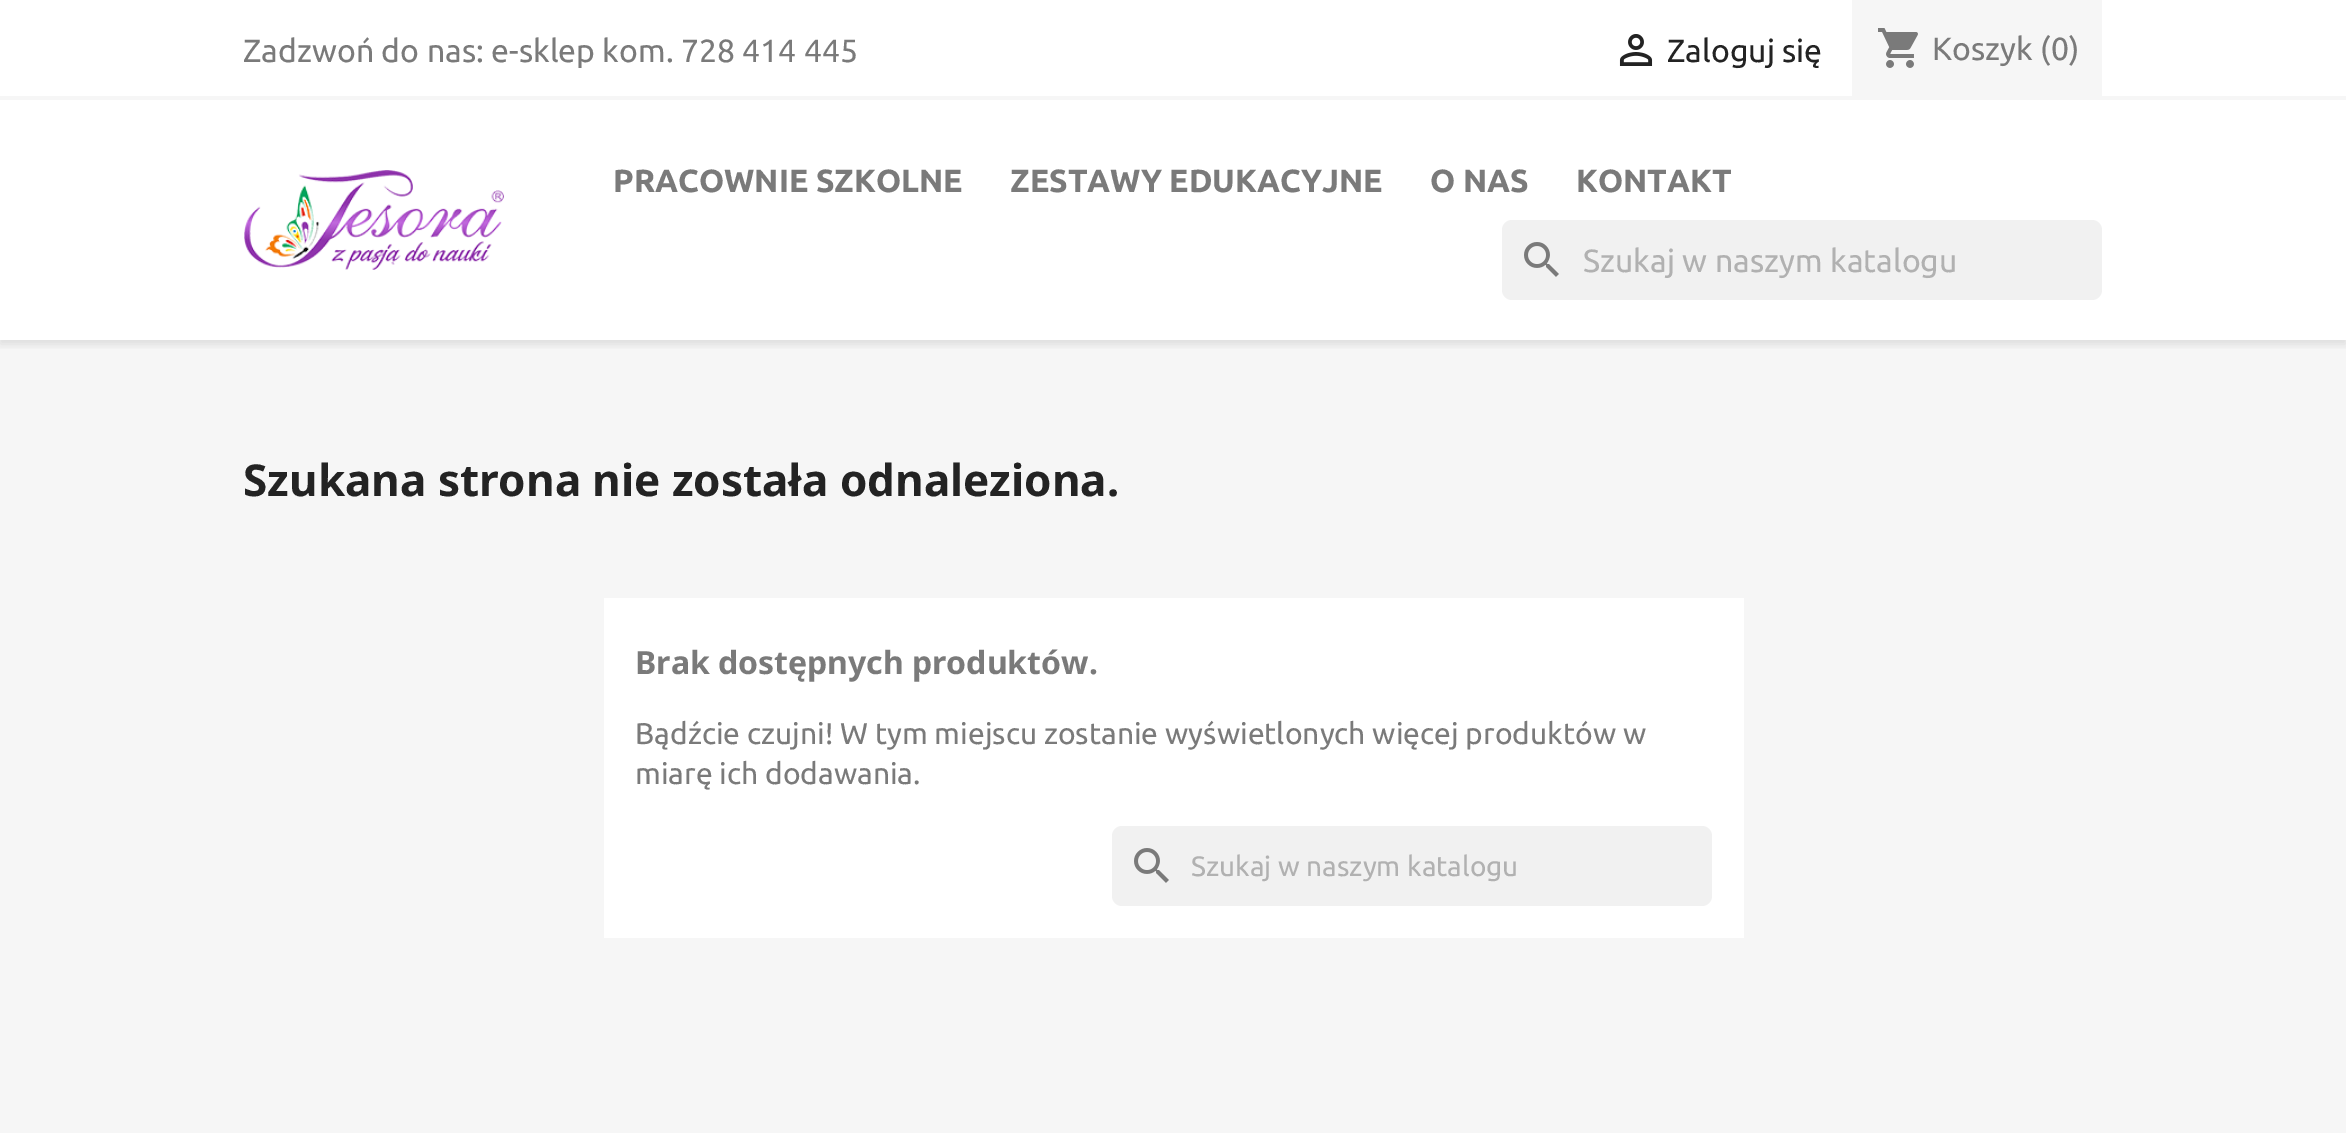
%!PS
<< /PageSize [2346 1133] /PageUsesTransparency true >> setpagedevice
/rgb { 3 { 255 div 3 1 roll } repeat setrgbcolor } def
/font { [ exch dup neg 0 0 3 -1 roll 0 0 ] selectfont } def
/alpha { dup .setfillconstantalpha .setstrokeconstantalpha } def
/roundrect { 5 dict begin { /r /h /w /y /x } { exch def } forall
  x r add y moveto x w add y 2 copy h add r arct x w add y h add x 1 index r arct
  x y h add x y r arct x y 2 copy exch w add exch r arct closepath end } def
/shadow { 12 dict begin { /a /b /q /h /w /y /x } { exch def } forall gsave /was 0 def
  9 -2 -9 { dup b mul 4 div /e exch def 1 sub .425 mul 2.718 exch exp 1 add a .99 .min exch div /now exch def
    1 1 now sub 1 was sub div sub alpha /was now def
    w h .min e 2 mul add 0 gt { x e sub y e sub w e 2 mul add h e 2 mul add
      q e add b .6 mul add w h .min 2 div e add .min 0 .max roundrect fill } if } for grestore end } def
/picture { 5 dict begin { /h /w /y /x /name } { exch def } forall
  gsave x y translate w h scale
  w h 8 [w 0 0 h 0 0] name (r) file false 3 colorimage grestore end } def
0 .pushpdf14devicefilter
0 1133 translate 1 -1 scale
4 setmiterlimit
255 255 255 rgb
0 0 2346 1133 rectfill
246 246 246 rgb
0 340 2346 793 rectfill
gsave
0 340 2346 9 rectclip
0 0 0 rgb
0 4 2346 340 0 5 0.11 shadow
grestore
0 96 2346 4 rectfill
(img/1.rgb) 1619 34 34 32 picture
1852 0 250 96 rectfill
(img/2.rgb) 1878 28 40 40 picture
(img/3.rgb) 244 170 260 100 picture
241 241 241 rgb
1502 220 600 80 10 roundrect fill
(img/4.rgb) 1524 242 35 35 picture
255 255 255 rgb
604 598 1140 340 rectfill
241 241 241 rgb
1112 826 600 80 10 roundrect fill
(img/4.rgb) 1134 848 35 35 picture
/Ubuntu-Regular 32 font
122 122 122 rgb
243 62 moveto (Zadzwoń do nas: e-sklep kom. 728 414 445) show
35 35 35 rgb
1667 62 moveto (Zaloguj się) show
122 122 122 rgb
1932 60 moveto (Koszyk \(0\)) show
/Ubuntu-Bold 32 font
[
  [(PRACOWNIE SZKOLNE) 613 192]
  [(ZESTAWY EDUKACYJNE) 1010 192]
  [(O NAS) 1430 192]
  [(KONTAKT) 1576 192]
] { aload pop moveto show } forall
/Ubuntu-Regular 32 font
177 177 177 rgb
1583 272 moveto (Szukaj w naszym katalogu) show
/NotoSans-Bold 44 font
35 35 35 rgb
243 496 moveto (Szukana strona nie została odnaleziona.) show
/NotoSans-Bold 32 font
122 122 122 rgb
635 674 moveto (Brak dostępnych produktów.) show
/Ubuntu-Regular 30 font
635 744 moveto (Bądźcie czujni! W tym miejscu zostanie wyświetlonych więcej produktów w) show
635 784 moveto (miarę ich dodawania.) show
/Ubuntu-Regular 28 font
177 177 177 rgb
1191 876 moveto (Szukaj w naszym katalogu) show
.poppdf14devicefilter showpage
